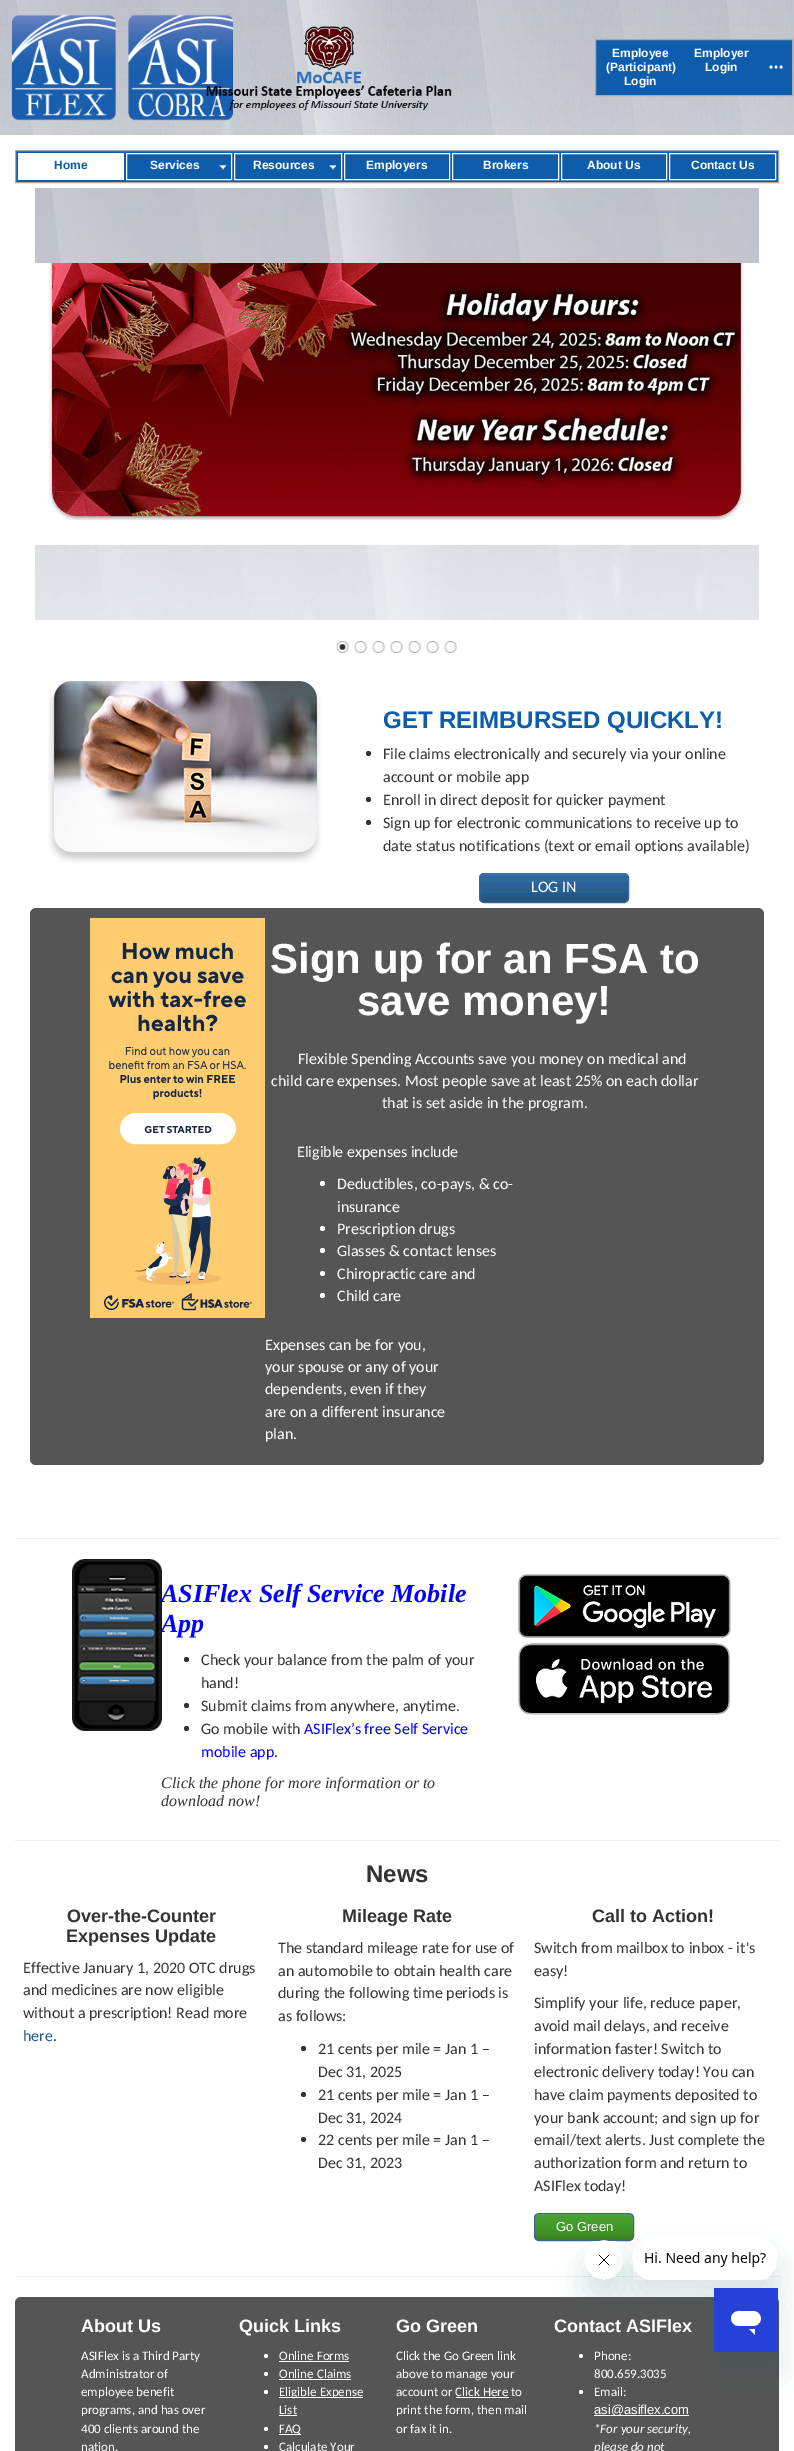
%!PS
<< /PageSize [794 2451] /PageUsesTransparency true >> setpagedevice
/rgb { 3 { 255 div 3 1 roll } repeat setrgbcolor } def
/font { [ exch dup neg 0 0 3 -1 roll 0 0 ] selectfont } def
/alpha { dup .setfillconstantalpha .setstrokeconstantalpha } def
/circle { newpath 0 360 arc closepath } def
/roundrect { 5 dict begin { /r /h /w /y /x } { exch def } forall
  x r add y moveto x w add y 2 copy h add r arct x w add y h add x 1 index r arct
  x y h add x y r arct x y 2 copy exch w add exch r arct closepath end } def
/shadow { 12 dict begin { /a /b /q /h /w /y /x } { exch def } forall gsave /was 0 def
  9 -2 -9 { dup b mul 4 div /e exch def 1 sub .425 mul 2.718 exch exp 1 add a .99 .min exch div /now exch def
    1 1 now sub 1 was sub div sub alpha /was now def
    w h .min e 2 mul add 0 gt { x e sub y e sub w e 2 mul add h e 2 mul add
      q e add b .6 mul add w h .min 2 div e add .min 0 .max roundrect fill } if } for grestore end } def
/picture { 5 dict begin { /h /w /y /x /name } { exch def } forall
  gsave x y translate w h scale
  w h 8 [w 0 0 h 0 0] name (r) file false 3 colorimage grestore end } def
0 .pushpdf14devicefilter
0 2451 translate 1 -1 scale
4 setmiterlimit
255 255 255 rgb
0 0 794 2451 rectfill
(img/1.rgb) 0 0 794 135 picture
(img/2.rgb) 11 14 222 107 picture
(img/3.rgb) 206 26 246 85 picture
14 93 172 rgb
595.5 39.5 moveto 792.5 39.5 lineto 792.5 95.5 lineto 595.5 95.5 lineto closepath gsave fill grestore
168 168 168 rgb
stroke
(img/4.rgb) 769 65 14 4 picture
14 93 172 rgb
15.5 150.5 moveto 778.5 150.5 lineto 778.5 182.5 lineto 15.5 182.5 lineto closepath gsave fill grestore
168 168 168 rgb
stroke
255 255 255 rgb
18 153 106 27 rectfill
126.5 153.5 105 26 rectstroke
(img/5.rgb) 219 165 7 5 picture
234.5 153.5 107 26 rectstroke
(img/5.rgb) 329 165 7 5 picture
344.5 153.5 105 26 rectstroke
452.5 153.5 106 26 rectstroke
561.5 153.5 105 26 rectstroke
669.5 153.5 106 26 rectstroke
(img/6.rgb) 35 188 724 432 picture
(img/7.rgb) 35 263 724 282 picture
(img/8.rgb) 336 641 13 12 picture
(img/9.rgb) 354 641 13 12 picture
(img/9.rgb) 372 641 13 12 picture
(img/9.rgb) 390 641 13 12 picture
(img/9.rgb) 408 641 13 12 picture
(img/9.rgb) 426 641 13 12 picture
(img/9.rgb) 444 641 13 12 picture
(img/10.rgb) 48 681 273 182 picture
51 51 51 rgb
368.5 753.5 2.5 circle fill
368.5 799.5 2.5 circle fill
368.5 822.5 2.5 circle fill
(img/11.rgb) 479 873 150 30 picture
57 102 157 rgb
479.5 873.5 149 29 4.5 roundrect stroke
85 85 85 rgb
30 908 734 557 6 roundrect fill
(img/12.rgb) 90 918 175 400 picture
255 255 255 rgb
322.5 1183.5 2.5 circle fill
322.5 1228.5 2.5 circle fill
322.5 1250.5 2.5 circle fill
322.5 1273.5 2.5 circle fill
322.5 1295.5 2.5 circle fill
238 238 238 rgb
15 1538 764 1 rectfill
(img/13.rgb) 72 1559 90 172 picture
51 51 51 rgb
186.5 1659.5 2.5 circle fill
186.5 1705.5 2.5 circle fill
186.5 1728.5 2.5 circle fill
(img/14.rgb) 518 1574 213 141 picture
238 238 238 rgb
15 1840 764 1 rectfill
51 51 51 rgb
303.5 2048.5 2.5 circle fill
303.5 2094.5 2.5 circle fill
303.5 2139.5 2.5 circle fill
(img/15.rgb) 534 2214 100 27 picture
57 102 157 rgb
534.5 2213.5 99 27 4.5 roundrect stroke
238 238 238 rgb
15 2276 764 1 rectfill
85 85 85 rgb
15 2297 764 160 6 roundrect fill
255 255 255 rgb
266 2356 2 circle fill
279 2361 70 1 rectfill
266 2374 2 circle fill
279 2379 72 1 rectfill
266 2392 2 circle fill
279 2397 84 1 rectfill
279 2415 18 1 rectfill
266 2429 2 circle fill
279 2434 22 1 rectfill
266 2447 2 circle fill
456 2397 53 1 rectfill
581 2356 2 circle fill
581 2392 2 circle fill
594 2415 95 1 rectfill
gsave
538 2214 moveto 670 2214 lineto 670 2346 lineto 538 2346 lineto closepath 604 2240 moveto 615 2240 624 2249 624 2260 curveto 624 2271 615 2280 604 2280 curveto 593 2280 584 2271 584 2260 curveto 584 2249 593 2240 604 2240 curveto closepath eoclip newpath
23 73 77 rgb
584 2260 40 40 20 15 0.15 shadow
grestore
(img/17.rgb) 592 2240 24 37 picture
gsave
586 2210 moveto 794 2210 lineto 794 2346 lineto 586 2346 lineto closepath 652 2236 moveto 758 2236 lineto 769 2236 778 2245 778 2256 curveto 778 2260 lineto 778 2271 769 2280 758 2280 curveto 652 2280 lineto 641 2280 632 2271 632 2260 curveto 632 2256 lineto 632 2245 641 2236 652 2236 curveto closepath eoclip newpath
23 73 77 rgb
632 2256 146 44 20 15 0.15 shadow
grestore
(img/16.rgb) 633 2252 139 28 picture
23 73 77 rgb
714 2308 64 64 0 15 0.15 shadow
(img/18.rgb) 714 2288 64 64 picture
/LiberationSans-Bold 12 font
255 255 255 rgb
[
  [(Employee) 612 57]
  [(\(Participant\)) 606 71]
  [(Login) 624 85]
  [(Employer) 694 57]
  [(Login) 705 71]
] { aload pop moveto show } forall
14 93 172 rgb
54 169 moveto (Home) show
255 255 255 rgb
[
  [(Services) 150 169]
  [(Resources) 253 169]
  [(Employers) 366 169]
  [(Brokers) 483 169]
  [(About Us) 587 169]
  [(Contact Us) 691 169]
] { aload pop moveto show } forall
/LiberationSans-Bold 24 font
14 93 172 rgb
383 728 moveto (GET REIMBURSED QUICKLY!) show
/Carlito-Regular 16 font
51 51 51 rgb
[
  [(File claims electronically and securely via your online) 383 759]
  [(account or mobile app) 383 782]
  [(Enroll in direct deposit for quicker payment) 383 805]
  [(Sign up for electronic communications to receive up to) 383 828]
  [(date status notifications \(text or email options available\)) 383 851]
] { aload pop moveto show } forall
255 255 255 rgb
531 892 moveto (LOG IN) show
/LiberationSans-Bold 42 font
270 973 moveto (Sign up for an FSA to) show
357 1015 moveto (save money!) show
/Carlito-Regular 16 font
[
  [(Flexible Spending Accounts save you money on medical and) 298 1064]
  [(child care expenses. Most people save at least 25% on each dollar) 271 1086]
  [(that is set aside in the program.) 382 1108]
  [(Eligible expenses include) 297 1157]
  [(Deductibles, co-pays, & co-) 337 1189]
  [(insurance) 337 1212]
  [(Prescription drugs) 337 1234]
  [(Glasses & contact lenses) 337 1256]
  [(Chiropractic care and) 337 1279]
  [(Child care) 337 1301]
  [(Expenses can be for you,) 265 1350]
  [(your spouse or any of your) 265 1372]
  [(dependents, even if they) 265 1394]
  [(are on a different insurance) 265 1417]
  [(plan.) 265 1439]
] { aload pop moveto show } forall
/LiberationSerif-BoldItalic 26 font
0 0 255 rgb
161 1602 moveto (ASIFlex Self Service Mobile) show
161 1632 moveto (App) show
/Carlito-Regular 16 font
51 51 51 rgb
[
  [(Check your balance from the palm of your) 201 1665]
  [(hand!) 201 1688]
  [(Submit claims from anywhere, anytime.) 201 1711]
  [(Go mobile with) 201 1734]
] { aload pop moveto show } forall
0 0 255 rgb
304 1734 moveto (ASIFlex’s free Self Service) show
201 1757 moveto (mobile app.) show
/LiberationSerif-Italic 16 font
51 51 51 rgb
161 1788 moveto (Click the phone for more information or to) show
161 1806 moveto (download now!) show
/LiberationSans-Bold 24 font
366 1882 moveto (News) show
/LiberationSans-Bold 18 font
67 1922 moveto (Over-the-Counter) show
66 1942 moveto (Expenses Update) show
/Carlito-Regular 16 font
[
  [(Effective January 1, 2020 OTC drugs) 23 1973]
  [(and medicines are now eligible) 23 1995]
  [(without a prescription! Read more) 23 2018]
] { aload pop moveto show } forall
38 90 135 rgb
23 2041 moveto (here) show
51 51 51 rgb
53 2041 moveto (.) show
/LiberationSans-Bold 18 font
342 1922 moveto (Mileage Rate) show
/Carlito-Regular 16 font
[
  [(The standard mileage rate for use of) 278 1953]
  [(an automobile to obtain health care) 278 1976]
  [(during the following time periods is) 278 1998]
  [(as follows:) 278 2021]
  [(21 cents per mile = Jan 1 –) 318 2054]
  [(Dec 31, 2025) 318 2077]
  [(21 cents per mile = Jan 1 –) 318 2100]
  [(Dec 31, 2024) 318 2123]
  [(22 cents per mile = Jan 1 –) 318 2145]
  [(Dec 31, 2023) 318 2168]
] { aload pop moveto show } forall
/LiberationSans-Bold 18 font
592 1922 moveto (Call to Action!) show
/Carlito-Regular 16 font
[
  [(Switch from mailbox to inbox - it's) 534 1953]
  [(easy!) 534 1976]
  [(Simplify your life, reduce paper,) 534 2008]
  [(avoid mail delays, and receive) 534 2031]
  [(information faster! Switch to) 534 2054]
  [(electronic delivery today! You can) 534 2077]
  [(have claim payments deposited to) 534 2100]
  [(your bank account; and sign up for) 534 2123]
  [(email/text alerts. Just complete the) 534 2145]
  [(authorization form and return to) 534 2168]
  [(ASIFlex today!) 534 2191]
] { aload pop moveto show } forall
/LiberationSans-Regular 13 font
255 255 255 rgb
556 2231 moveto (Go Green) show
/LiberationSans-Bold 18 font
81 2332 moveto (About Us) show
/Carlito-Regular 13 font
[
  [(ASIFlex is a Third Party) 81 2360]
  [(Administrator of) 81 2378]
  [(employee benefit) 81 2396]
  [(programs, and has over) 81 2414]
  [(400 clients around the) 81 2433]
  [(nation.) 81 2451]
] { aload pop moveto show } forall
/LiberationSans-Bold 18 font
239 2332 moveto (Quick Links) show
/Carlito-Regular 13 font
[
  [(Online Forms) 279 2360]
  [(Online Claims) 279 2378]
  [(Eligible Expense) 279 2396]
  [(List) 279 2414]
  [(FAQ) 279 2433]
  [(Calculate Your) 279 2451]
] { aload pop moveto show } forall
/LiberationSans-Bold 18 font
396 2332 moveto (Go Green) show
/Carlito-Regular 13 font
[
  [(Click the Go Green link) 396 2360]
  [(above to manage your) 396 2378]
  [(account or Click Here to) 396 2396]
  [(print the form, then mail) 396 2414]
  [(or fax it in.) 396 2433]
] { aload pop moveto show } forall
/LiberationSans-Bold 18 font
554 2332 moveto (Contact ASIFlex) show
/Carlito-Regular 13 font
[
  [(Phone:) 594 2360]
  [(800.659.3035) 594 2378]
  [(Email:) 594 2396]
] { aload pop moveto show } forall
/LiberationSans-Regular 13 font
594 2414 moveto (asi@asiflex.com) show
/Carlito-Italic 13 font
594 2433 moveto (*For your security,) show
594 2451 moveto (please do not) show
.poppdf14devicefilter showpage
